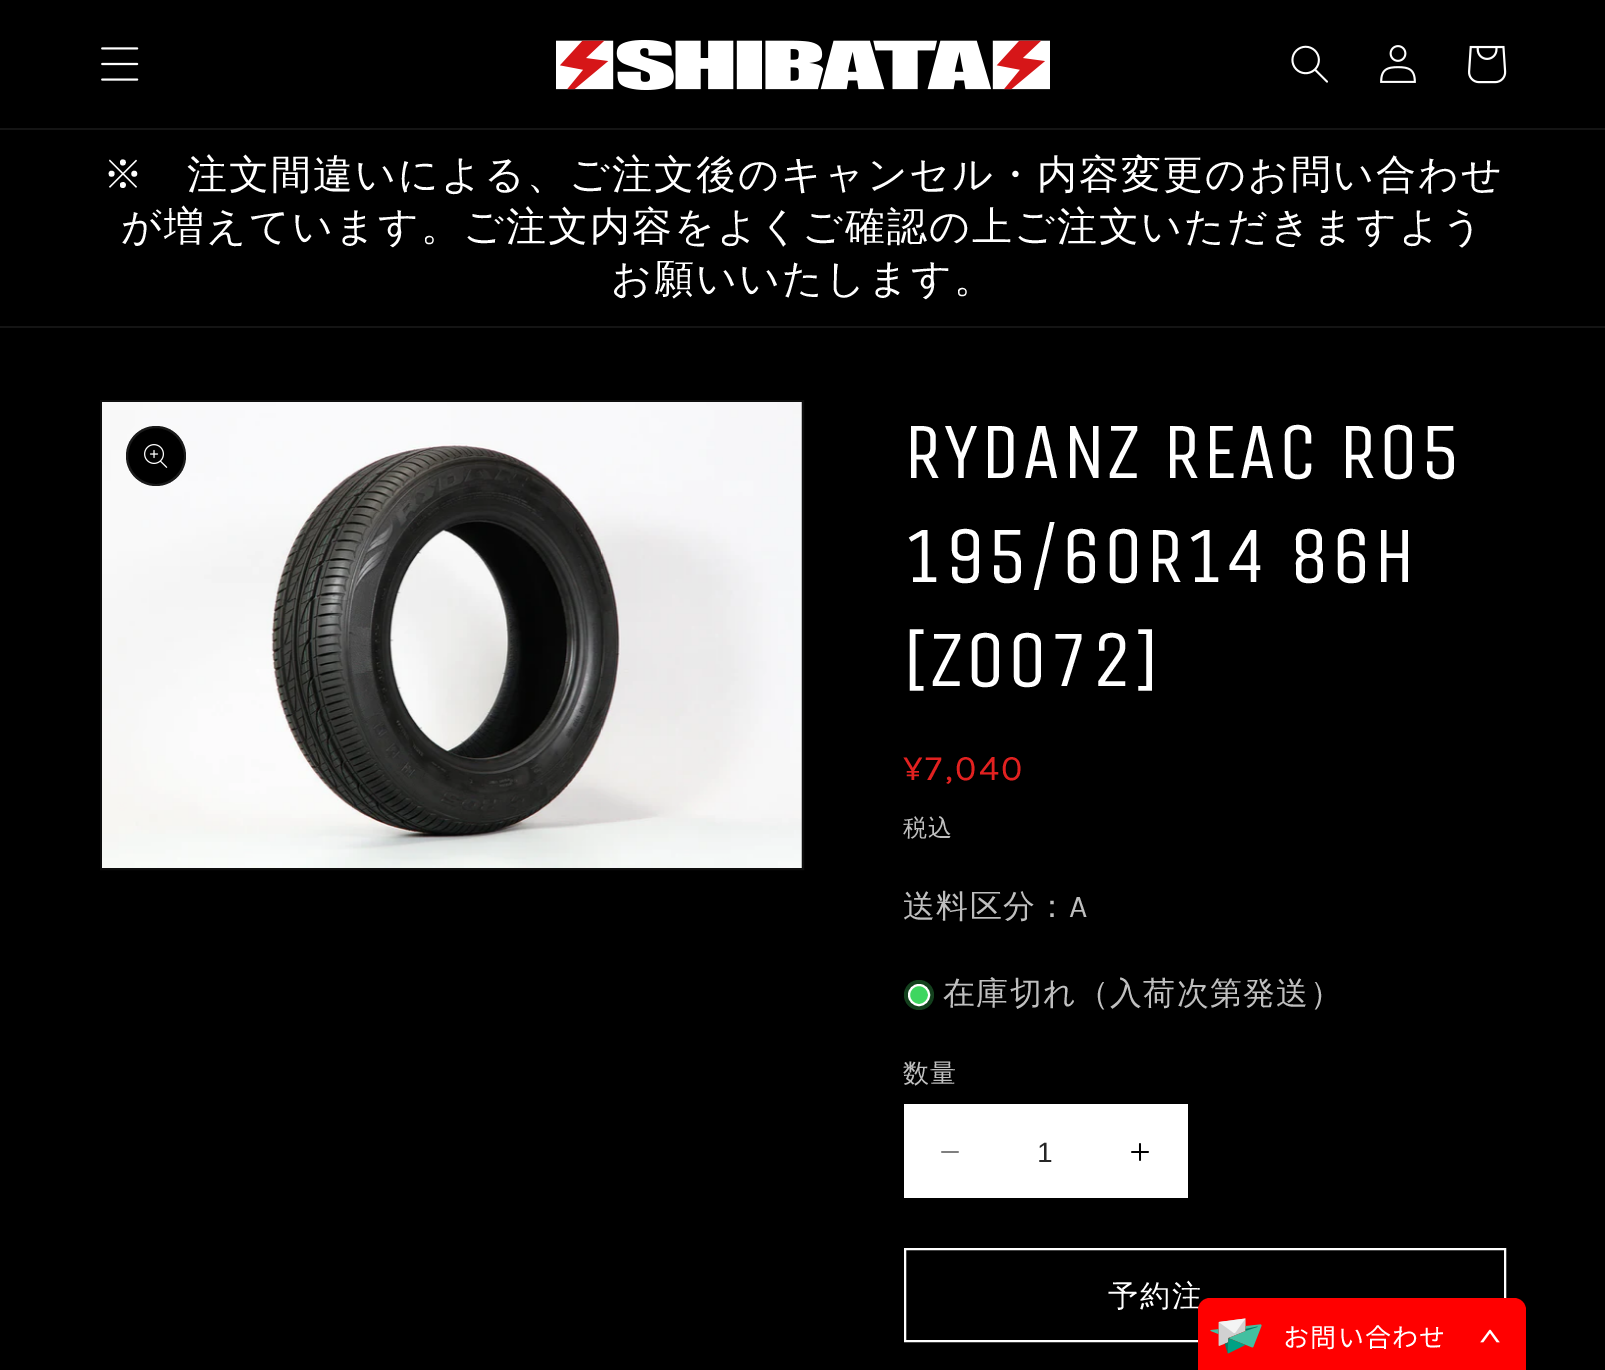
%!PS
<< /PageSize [1605 1370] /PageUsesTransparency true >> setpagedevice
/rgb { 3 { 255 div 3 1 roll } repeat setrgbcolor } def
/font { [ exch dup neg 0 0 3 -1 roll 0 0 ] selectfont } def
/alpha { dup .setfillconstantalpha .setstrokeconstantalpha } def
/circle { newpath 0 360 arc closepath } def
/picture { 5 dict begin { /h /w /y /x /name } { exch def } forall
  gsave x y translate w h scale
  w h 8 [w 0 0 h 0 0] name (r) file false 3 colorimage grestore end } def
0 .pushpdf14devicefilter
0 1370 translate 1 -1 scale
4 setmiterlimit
0 0 0 rgb
0 0 1605 1370 rectfill
20 20 20 rgb
0 128 1605 2 rectfill
(img/1.rgb) 101 47 38 34 picture
(img/2.rgb) 556 40 494 50 picture
(img/3.rgb) 1291 45 37 38 picture
(img/4.rgb) 1380 45 36 38 picture
(img/5.rgb) 1468 45 39 39 picture
0 326 1605 2 rectfill
13 13 13 rgb
2 setlinewidth
101 401 702 468 rectstroke
(img/6.rgb) 102 402 700 466 picture
0 0 0 rgb
156 456 30 circle fill
0.1 alpha
255 255 255 rgb
156 456 29 circle stroke
1 alpha
(img/7.rgb) 144 444 24 24 picture
19 64 29 rgb
919 995 15 circle fill
62 214 96 rgb
919 995 10 circle gsave fill grestore
255 255 255 rgb
stroke
904 1104 284 94 rectfill
(img/8.rgb) 941 1151 18 2 picture
(img/9.rgb) 1131 1143 18 18 picture
905 1249 600 92 rectstroke
/WenQuanYiZenHei-Medium 40 font
103 188 moveto 2 0 (※　注文間違いによる、ご注文後のキャンセル・内容変更のお問い合わせ) ashow
121 240 moveto 2 0 (が増えています。ご注文内容をよくご確認の上ご注文いただきますよう) ashow
611 292 moveto 2 0 (お願いいたします。) ashow
/UnicaOne-Regular 80 font
903 478 moveto 1.25 0 (RYDANZ REAC R05) ashow
903 582 moveto 1.25 0 (195/60R14 86H) ashow
903 686 moveto 1.25 0 ([Z0072]) ashow
/Karla-Regular 36 font
226 33 32 rgb
903 780 moveto 2.5 0 (¥7,040) ashow
/WenQuanYiZenHei-Medium 24 font
191 191 191 rgb
903 836 moveto 1 0 (税込) ashow
/WenQuanYiZenHei-Medium 32 font
903 917 moveto 1.25 0 (送料区分：) ashow
/Karla-Regular 32 font
1069 917 moveto 1.25 0 (A) ashow
/WenQuanYiZenHei-Medium 32 font
943 1004 moveto 1.25 0 (在庫切れ（入荷次第発送）) ashow
/WenQuanYiZenHei-Medium 26 font
903 1082 moveto 1 0 (数量) ashow
/LiberationSans-Regular 28 font
38 38 38 rgb
1037 1162 moveto (1) show
/WenQuanYiZenHei-Medium 30 font
255 255 255 rgb
1108 1306 moveto 2 0 (予約注) ashow
255 0 0 rgb
1210 1298 moveto 1514 1298 lineto 1520.5 1298 1526 1303.5 1526 1310 curveto 1526 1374 lineto 1198 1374 lineto 1198 1310 lineto 1198 1303.5 1203.5 1298 1210 1298 curveto closepath fill
(img/10.rgb) 1210 1318 52 36 picture
/NotoSansJP-Regular 26 font
255 255 255 rgb
1283 1347 moveto 1.25 0 (お問い合わせ) ashow
(img/11.rgb) 1480 1329 20 14 picture
.poppdf14devicefilter showpage
